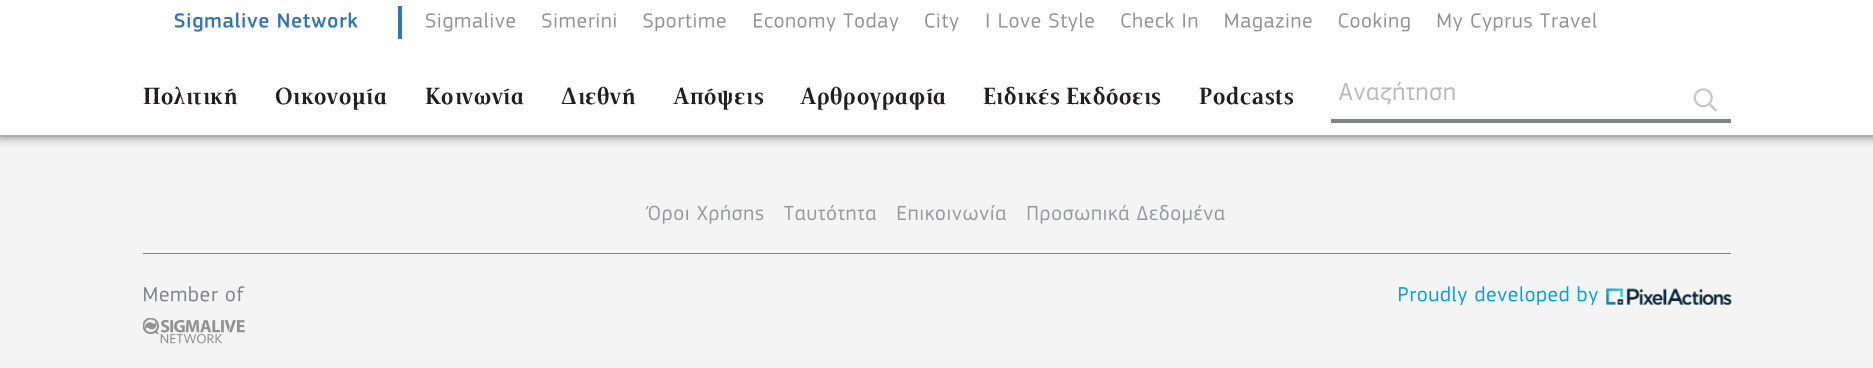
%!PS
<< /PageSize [1873 368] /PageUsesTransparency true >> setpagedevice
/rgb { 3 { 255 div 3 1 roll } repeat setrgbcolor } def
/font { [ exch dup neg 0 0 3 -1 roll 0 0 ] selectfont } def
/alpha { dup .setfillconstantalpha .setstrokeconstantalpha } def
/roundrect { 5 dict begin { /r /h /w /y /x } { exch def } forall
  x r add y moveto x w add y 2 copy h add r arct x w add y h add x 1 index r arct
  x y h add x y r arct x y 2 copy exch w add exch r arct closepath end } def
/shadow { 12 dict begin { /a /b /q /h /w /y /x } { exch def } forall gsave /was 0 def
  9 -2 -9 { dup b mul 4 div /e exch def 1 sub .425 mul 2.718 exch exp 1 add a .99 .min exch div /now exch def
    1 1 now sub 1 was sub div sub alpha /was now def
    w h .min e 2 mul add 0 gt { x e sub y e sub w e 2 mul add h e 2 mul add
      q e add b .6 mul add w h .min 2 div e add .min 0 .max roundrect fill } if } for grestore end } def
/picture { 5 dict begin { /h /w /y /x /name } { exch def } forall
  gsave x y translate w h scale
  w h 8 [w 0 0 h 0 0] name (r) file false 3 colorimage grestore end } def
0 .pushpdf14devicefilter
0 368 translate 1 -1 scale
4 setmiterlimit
244 244 244 rgb
0 0 1873 368 rectfill
0 0 0 rgb
0 1 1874 135 0 5 0.6 shadow
254 254 254 rgb
0 0 1873 135 rectfill
46 117 187 rgb
398 6 4 33 rectfill
(img/1.rgb) 174 12 184 20 picture
(img/2.rgb) 426 12 90 20 picture
(img/3.rgb) 542 13 74 15 picture
(img/4.rgb) 643 13 83 19 picture
(img/5.rgb) 754 12 145 20 picture
(img/6.rgb) 925 13 34 19 picture
(img/7.rgb) 986 12 108 20 picture
(img/8.rgb) 1121 12 77 16 picture
(img/9.rgb) 1225 13 87 19 picture
(img/10.rgb) 1338 12 72 20 picture
(img/11.rgb) 1437 12 160 20 picture
128 130 133 rgb
1331 119 400 4 rectfill
(img/12.rgb) 1339 81 116 24 picture
(img/13.rgb) 1693 88 24 24 picture
143 253 1588 1 rectfill
(img/14.rgb) 645 204 119 20 picture
(img/15.rgb) 784 204 93 17 picture
(img/16.rgb) 897 204 109 17 picture
(img/17.rgb) 1027 204 198 20 picture
(img/18.rgb) 144 286 101 16 picture
(img/19.rgb) 143 318 102 26 picture
(img/20.rgb) 1399 286 199 19 picture
(img/21.rgb) 1606 288 126 17 picture
/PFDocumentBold-Bold 23.5 font
35 31 32 rgb
143 104 moveto 0.75 0 (Πολιτική) ashow
275 104 moveto 0.75 0 (Οικονομία) ashow
425 104 moveto 0.75 0 (Κοινωνία) ashow
561 104 moveto 0.75 0 (Διεθνή) ashow
674 104 moveto 0.75 0 (Απόψεις) ashow
801 104 moveto 0.75 0 (Αρθρογραφία) ashow
983 104 moveto 0.75 0 (Ειδικές Εκδόσεις) ashow
1199 104 moveto 0.75 0 (Podcasts) ashow
.poppdf14devicefilter showpage
